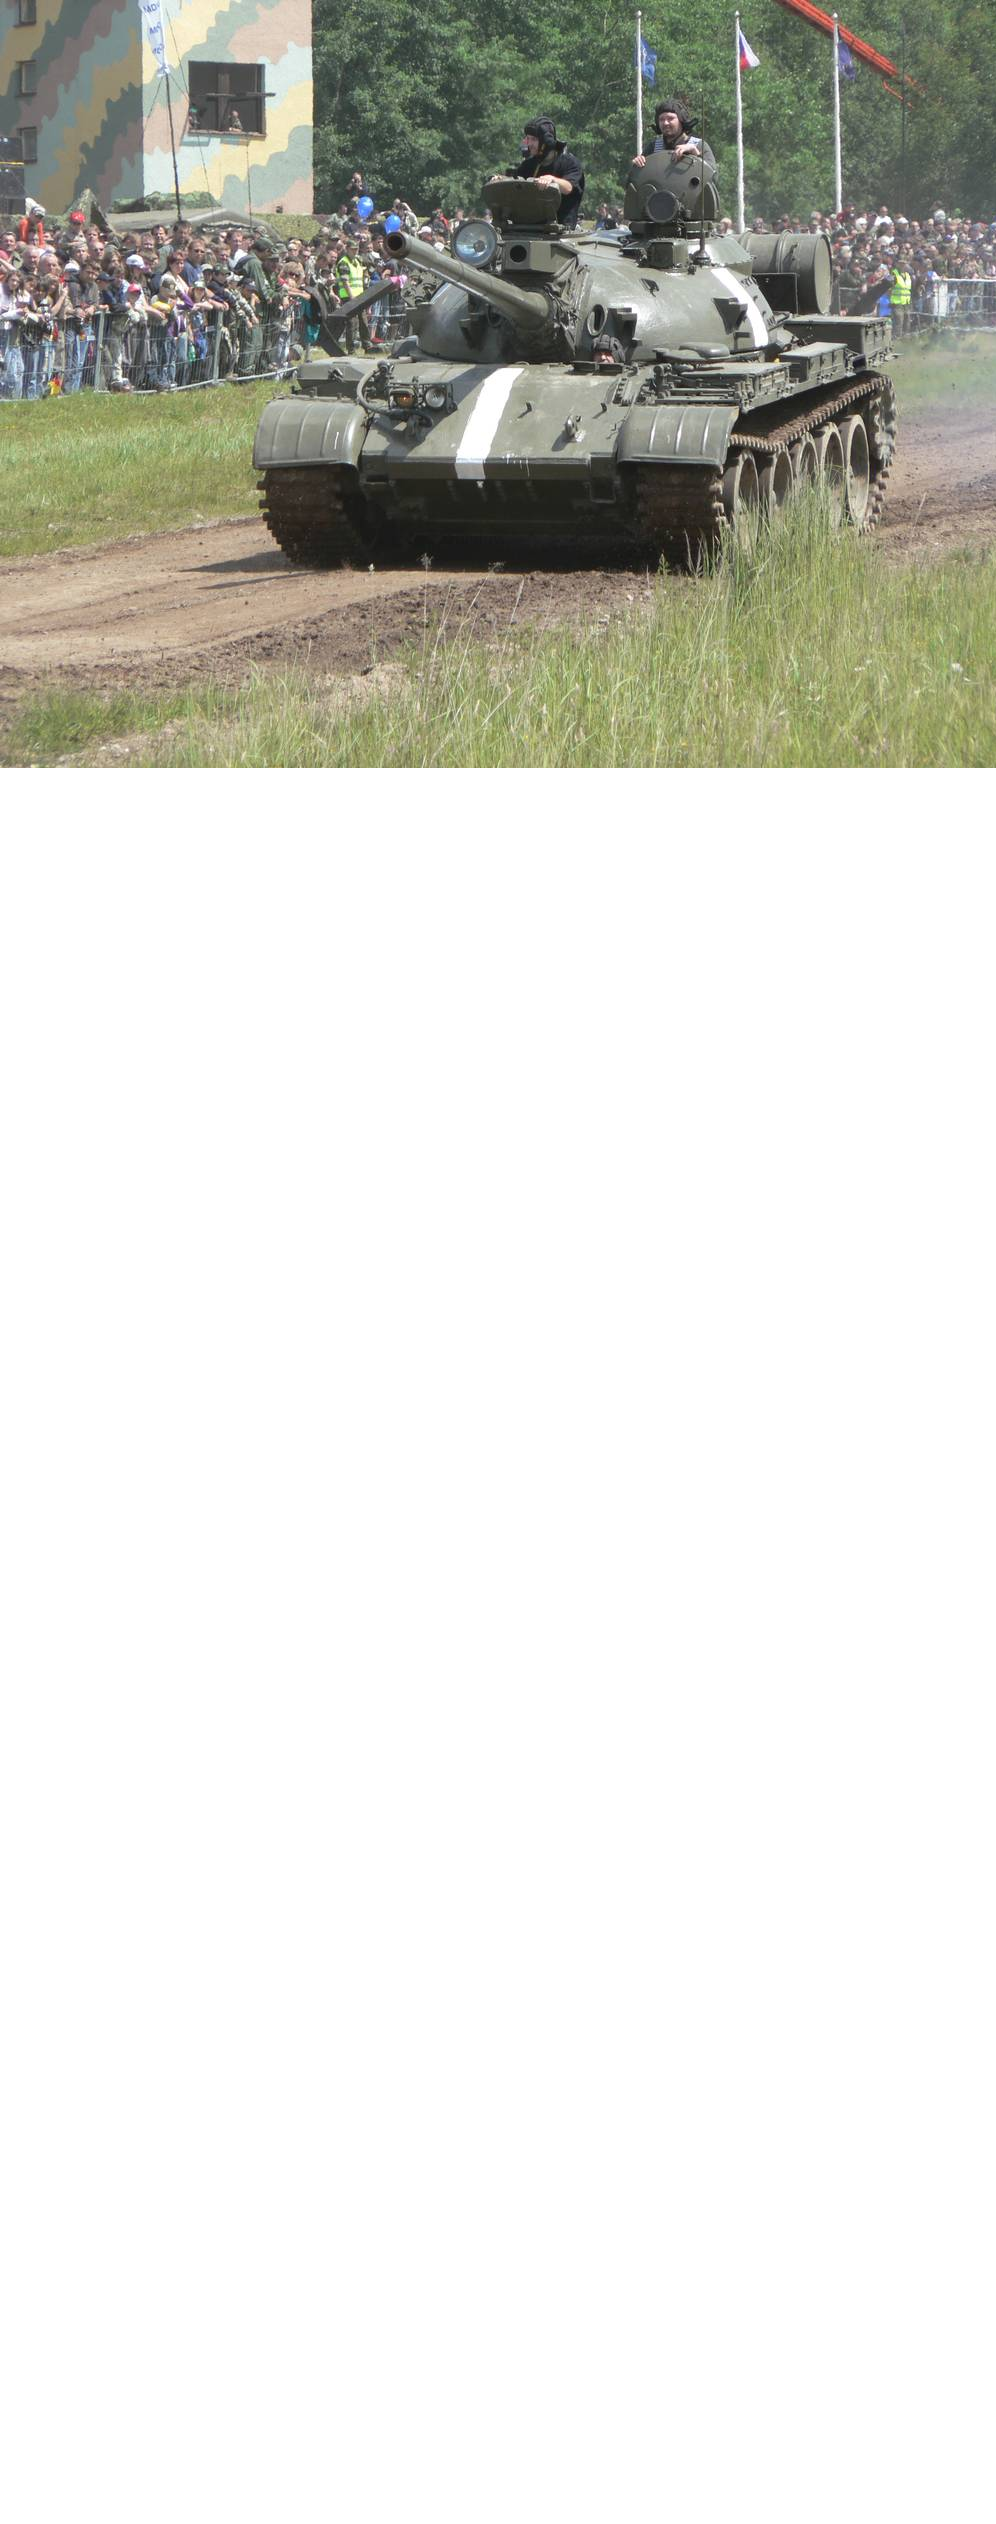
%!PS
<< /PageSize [996 2524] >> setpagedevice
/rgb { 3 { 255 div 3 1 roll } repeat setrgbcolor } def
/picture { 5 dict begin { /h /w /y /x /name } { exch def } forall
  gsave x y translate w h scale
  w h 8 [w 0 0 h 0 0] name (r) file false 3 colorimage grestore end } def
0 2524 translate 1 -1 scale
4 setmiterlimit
255 255 255 rgb
0 0 996 2524 rectfill
(img/1.rgb) 0 0 996 768 picture
showpage
